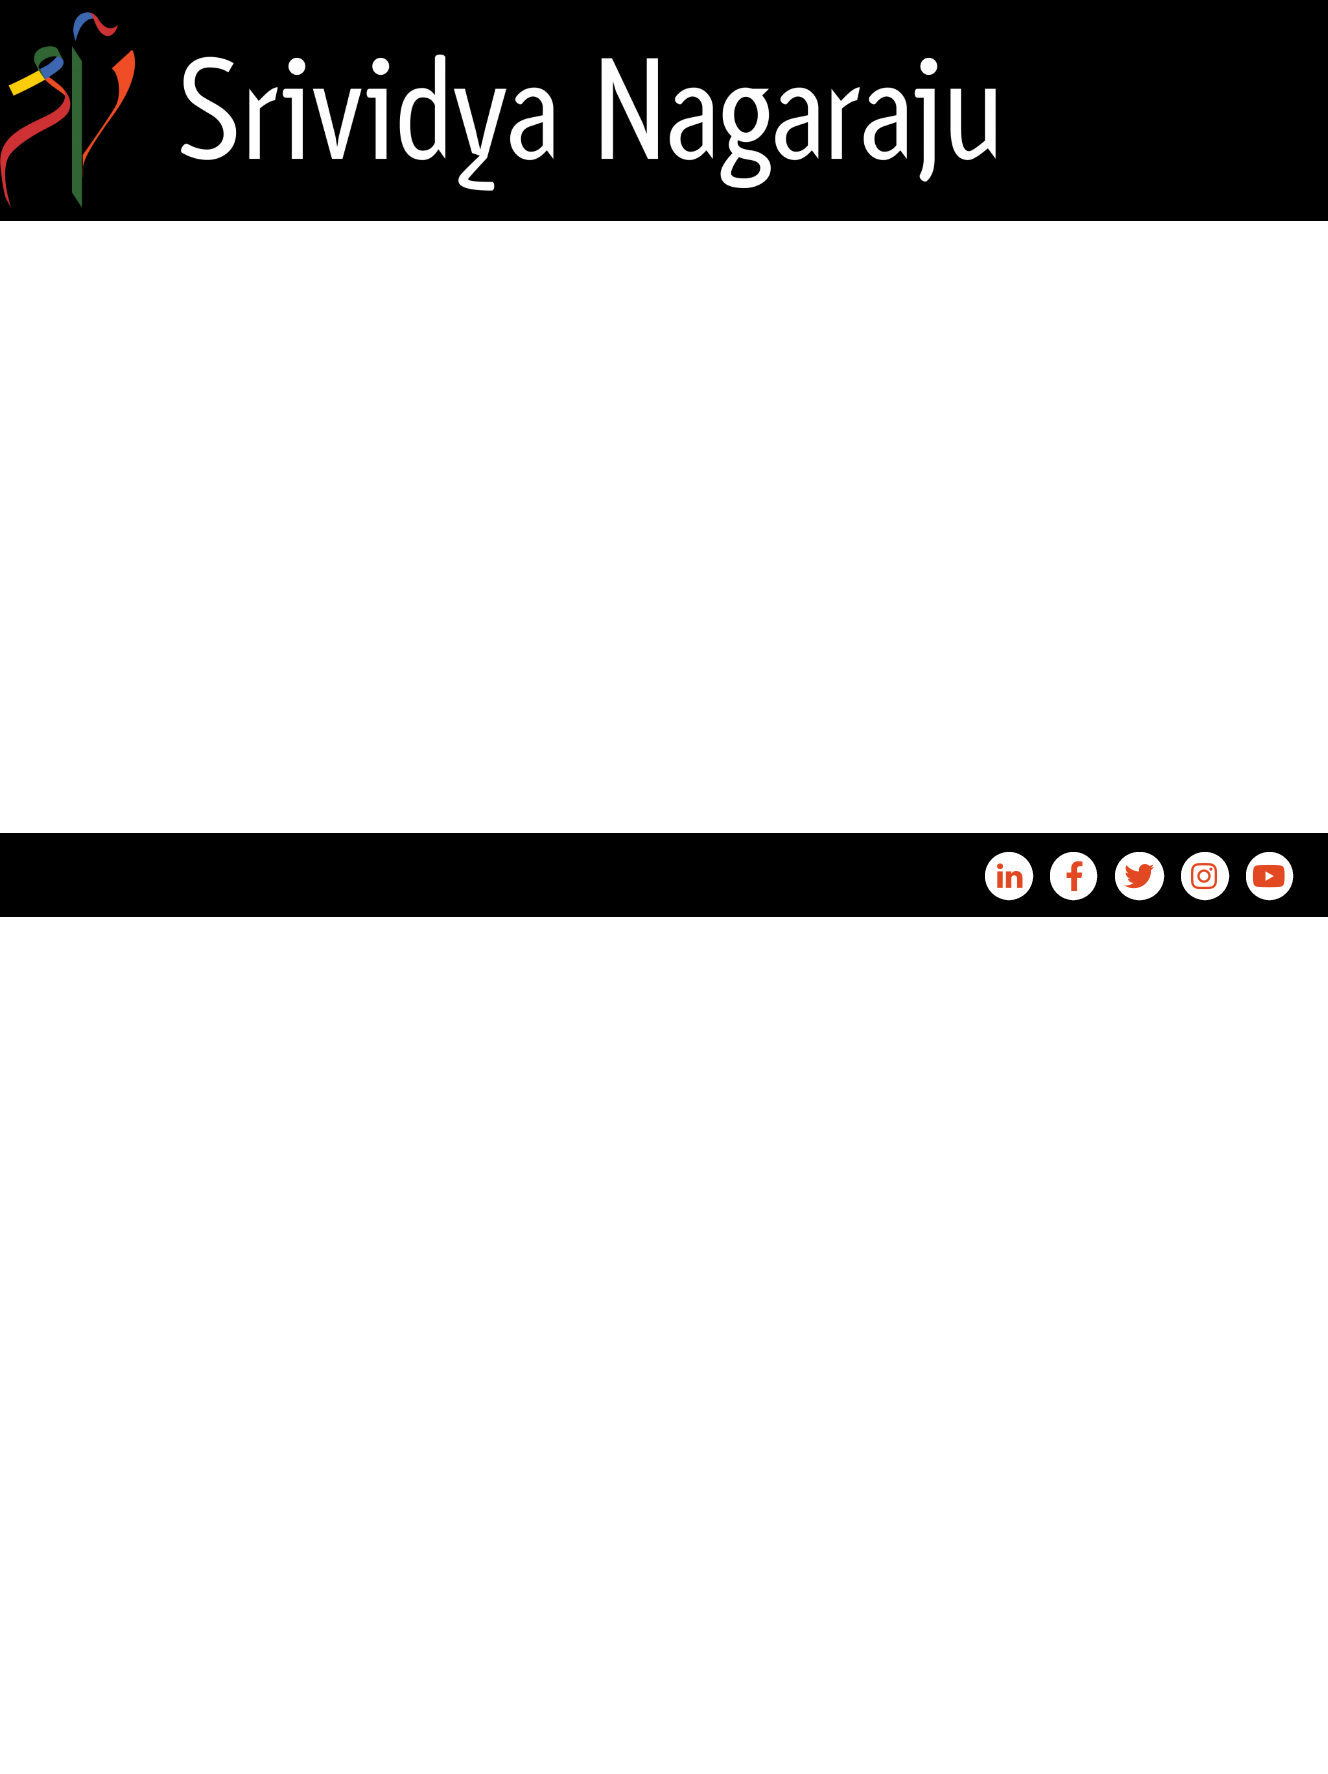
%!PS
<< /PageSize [1328 1774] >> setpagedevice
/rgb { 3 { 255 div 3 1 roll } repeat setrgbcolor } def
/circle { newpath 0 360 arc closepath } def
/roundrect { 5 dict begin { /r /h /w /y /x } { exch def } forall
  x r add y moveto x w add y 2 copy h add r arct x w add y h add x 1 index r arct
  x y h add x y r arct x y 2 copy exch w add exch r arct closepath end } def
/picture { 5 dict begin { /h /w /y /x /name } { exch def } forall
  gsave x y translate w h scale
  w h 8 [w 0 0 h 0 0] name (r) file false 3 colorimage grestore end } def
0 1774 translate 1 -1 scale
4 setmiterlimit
255 255 255 rgb
0 0 1328 1774 rectfill
0 0 0 rgb
0 0 1328 221 rectfill
(img/1.rgb) 0 12 996 196 picture
0 833 1328 84 rectfill
255 255 255 rgb
1009 876 23 circle gsave fill grestore
2 setlinewidth
stroke
(img/2.rgb) 997 863 26 25 picture
1051 853 45 46 22.5 roundrect gsave fill grestore
stroke
(img/3.rgb) 1066 861 17 30 picture
1116 853 47 46 23 roundrect gsave fill grestore
stroke
(img/4.rgb) 1124 864 30 25 picture
1205 876 23 circle gsave fill grestore
stroke
(img/5.rgb) 1191 863 27 27 picture
1247 853 45 46 22.5 roundrect gsave fill grestore
stroke
(img/6.rgb) 1252 864 33 24 picture
showpage
